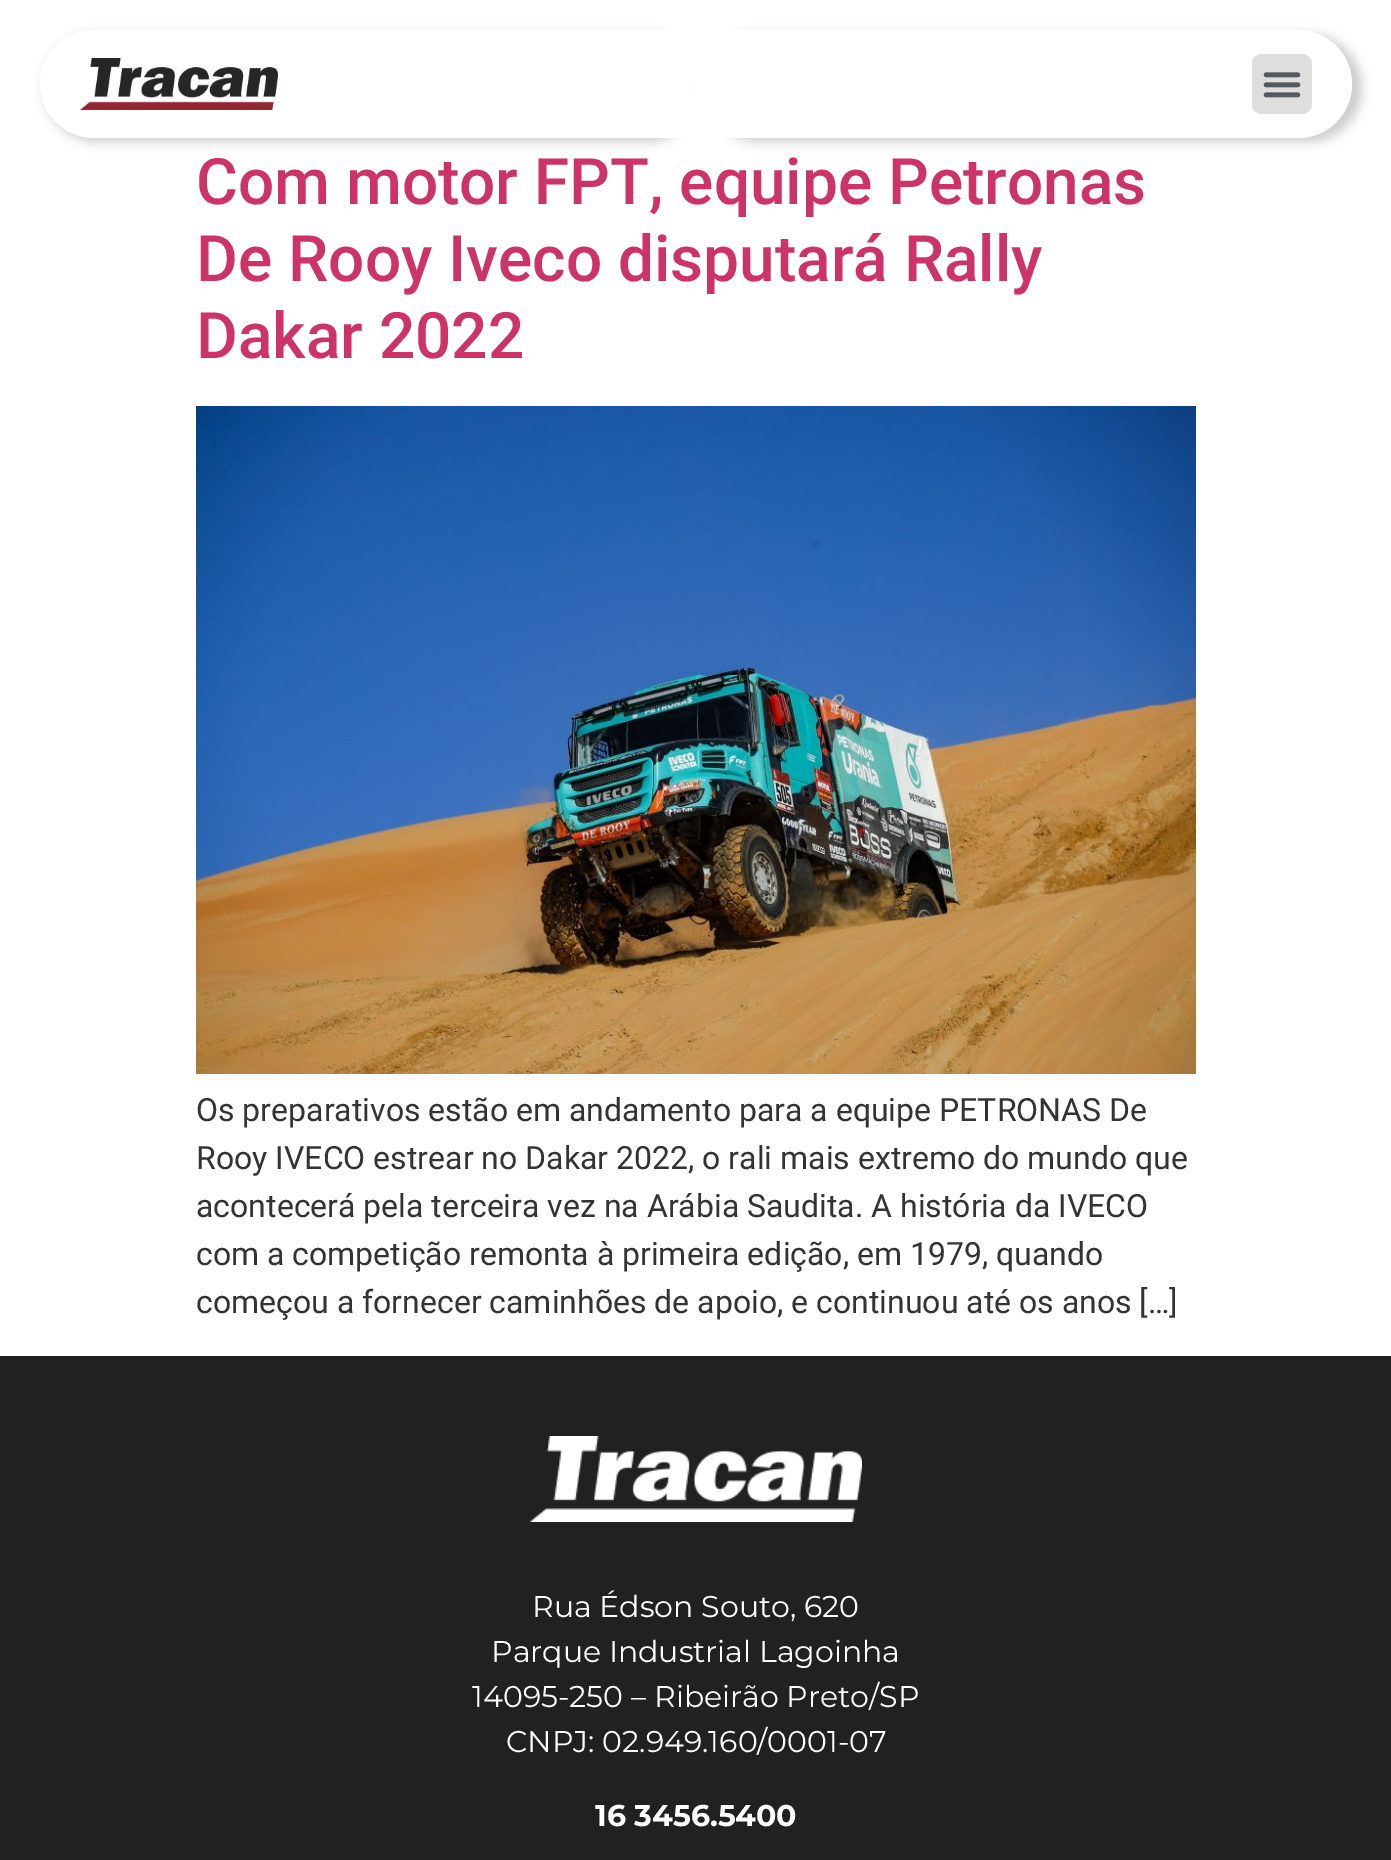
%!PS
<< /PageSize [1391 1860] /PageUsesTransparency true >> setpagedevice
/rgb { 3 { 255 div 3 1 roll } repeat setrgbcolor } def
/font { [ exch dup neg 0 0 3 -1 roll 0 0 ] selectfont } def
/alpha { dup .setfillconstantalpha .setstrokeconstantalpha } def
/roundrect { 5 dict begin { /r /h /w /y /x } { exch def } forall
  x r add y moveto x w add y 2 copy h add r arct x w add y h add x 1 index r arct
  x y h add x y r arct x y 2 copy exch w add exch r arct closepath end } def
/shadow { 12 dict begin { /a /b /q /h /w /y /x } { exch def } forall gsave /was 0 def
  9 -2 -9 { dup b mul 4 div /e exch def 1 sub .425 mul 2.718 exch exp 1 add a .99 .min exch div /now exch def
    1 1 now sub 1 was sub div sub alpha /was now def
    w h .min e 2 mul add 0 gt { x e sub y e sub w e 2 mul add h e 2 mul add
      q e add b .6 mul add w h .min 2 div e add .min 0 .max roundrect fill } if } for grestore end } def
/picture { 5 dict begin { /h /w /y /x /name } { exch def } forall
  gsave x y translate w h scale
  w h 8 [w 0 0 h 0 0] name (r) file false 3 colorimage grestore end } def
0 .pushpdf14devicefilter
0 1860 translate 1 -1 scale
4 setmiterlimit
255 255 255 rgb
0 0 1391 1860 rectfill
0 0 0 rgb
44 34 656 108 54 5 0.19 shadow
255 255 255 rgb
94 30 moveto 696 30 lineto 696 138 lineto 94 138 lineto 64 138 40 114 40 84 curveto 40 54 64 30 94 30 curveto closepath fill
(img/1.rgb) 80 58 198 52 picture
0 0 0 rgb
706 34 656 108 54 5 0.19 shadow
255 255 255 rgb
696 30 moveto 1298 30 lineto 1328 30 1352 54 1352 84 curveto 1352 114 1328 138 1298 138 curveto 696 138 lineto closepath fill
222 222 222 rgb
1252 54 60 60 10 roundrect fill
(img/2.rgb) 1263 72 38 26 picture
(img/3.rgb) 196 406 1000 668 picture
33 33 33 rgb
0 1356 1391 504 rectfill
(img/4.rgb) 530 1436 332 86 picture
/Roboto-Medium 64 font
204 51 102 rgb
[
  [(Com motor FPT, equipe Petronas) 196 204]
  [(De Rooy Iveco disputará Rally) 196 281]
  [(Dakar 2022) 196 358]
] { aload pop moveto show } forall
/Roboto-Regular 32 font
51 51 51 rgb
[
  [(Os preparativos estão em andamento para a equipe PETRONAS De) 196 1121]
  [(Rooy IVECO estrear no Dakar 2022, o rali mais extremo do mundo que) 196 1169]
  [(acontecerá pela terceira vez na Arábia Saudita. A história da IVECO) 196 1217]
  [(com a competição remonta à primeira edição, em 1979, quando) 196 1265]
  [(começou a fornecer caminhões de apoio, e continuou até os anos […]) 196 1313]
] { aload pop moveto show } forall
/Montserrat-Regular 30 font
255 255 255 rgb
[
  [(Rua Édson Souto, 620) 532 1617]
  [(Parque Industrial Lagoinha) 491 1662]
  [(14095-250 – Ribeirão Preto/SP) 472 1707]
  [(CNPJ: 02.949.160/0001-07) 506 1752]
] { aload pop moveto show } forall
/Montserrat-Bold 30 font
595 1826 moveto (16 3456.5400) show
.poppdf14devicefilter showpage
